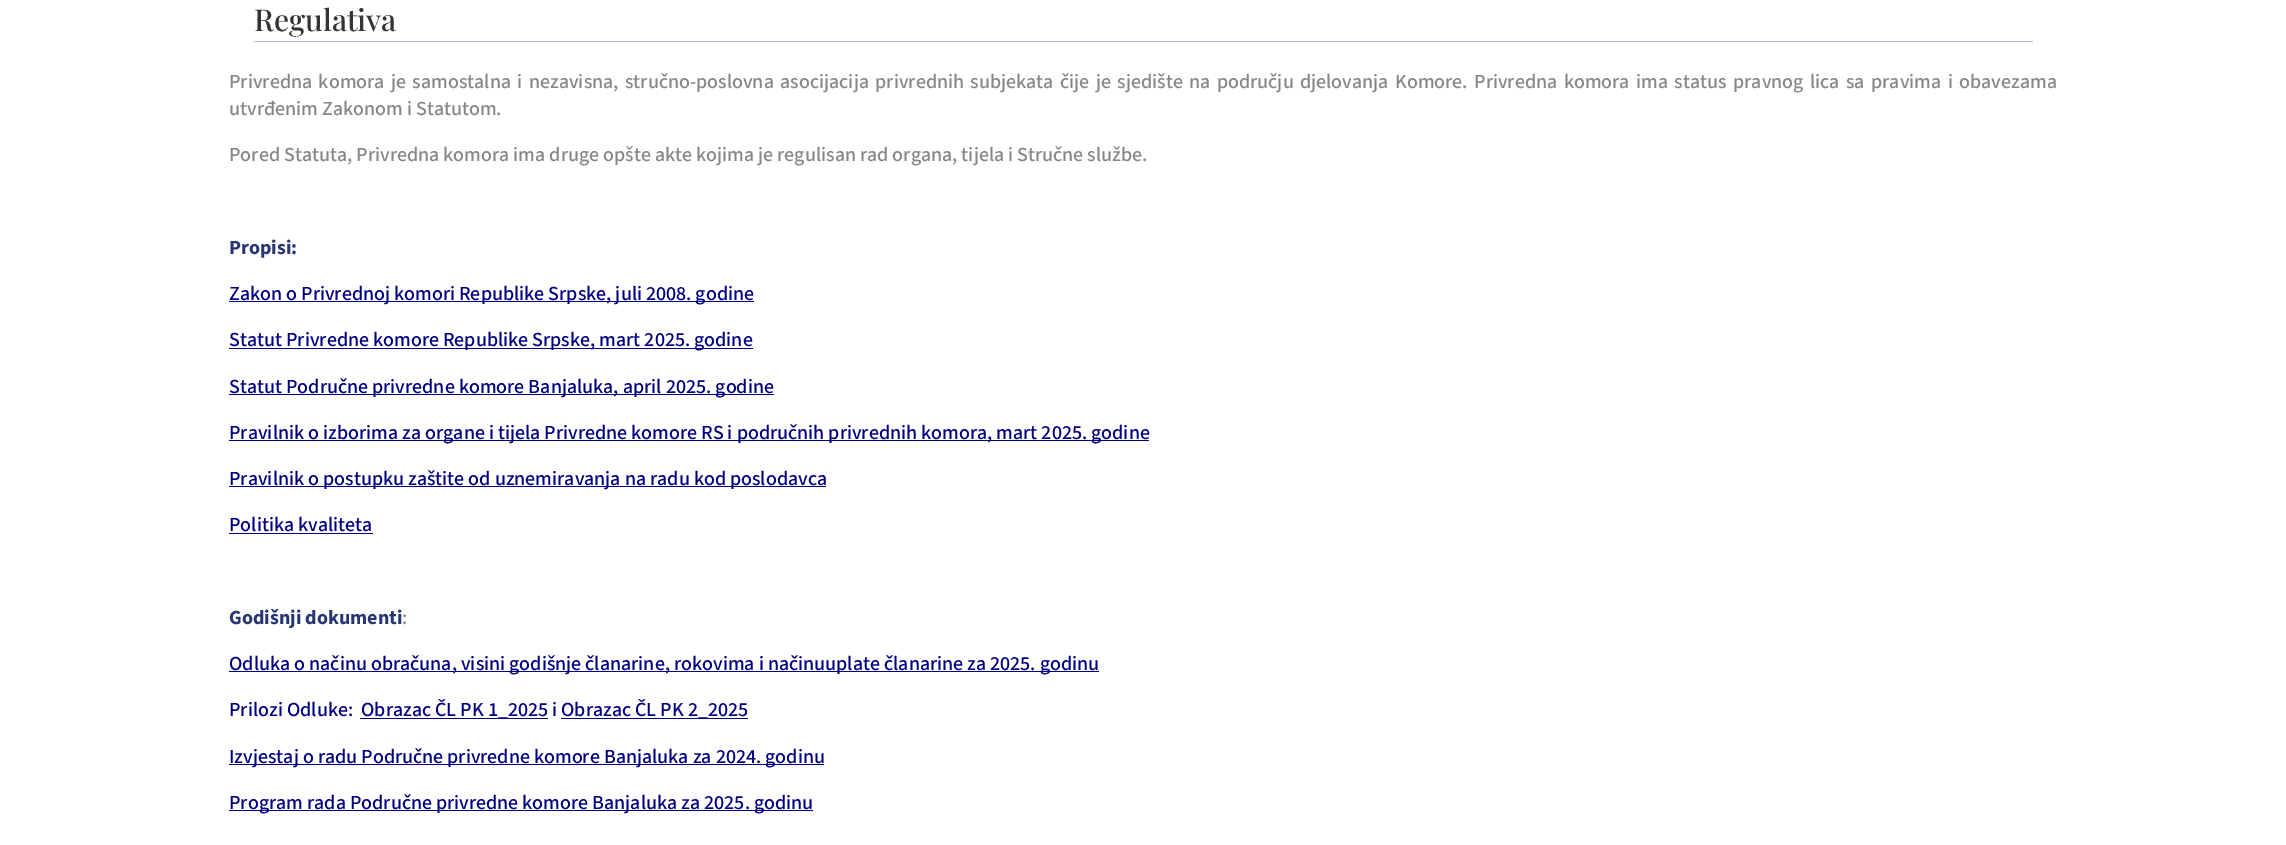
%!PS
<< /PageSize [2286 845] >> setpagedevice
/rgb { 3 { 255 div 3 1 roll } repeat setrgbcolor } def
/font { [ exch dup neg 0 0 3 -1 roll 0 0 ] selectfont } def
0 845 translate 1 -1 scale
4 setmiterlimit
255 255 255 rgb
0 0 2286 845 rectfill
[
  [254 41 1779 1 180 187 208]
  [229 301 525 1 0 0 128]
  [229 348 524 1 0 0 128]
  [229 394 545 1 0 0 128]
  [229 440 920 1 0 0 128]
  [229 486 597 1 0 0 128]
  [229 533 144 1 0 0 128]
  [229 671 870 1 0 0 128]
  [360 718 188 1 0 0 128]
  [561 718 187 1 0 0 128]
  [229 764 595 1 0 0 128]
  [229 810 584 1 0 0 128]
] { aload pop rgb rectfill } forall
/PlayfairDisplay-Medium 30 font
52 52 52 rgb
254 31 moveto (Regulativa) show
/SourceSans3-Medium 20 font
135 134 134 rgb
229 88 moveto 2.4 0 32 (Privredna komora je samostalna i nezavisna, stručno-poslovna asocijacija privrednih subjekata čije je sjedište na području djelovanja Komore. Privredna komora ima status pravnog lica sa pravima i obavezama) widthshow
229 115 moveto (utvrđenim Zakonom i Statutom.) show
229 161 moveto (Pored Statuta, Privredna komora ima druge opšte akte kojima je regulisan rad organa, tijela i Stručne službe.) show
/SourceSans3-Bold 20 font
39 54 115 rgb
229 254 moveto (Propisi:) show
/SourceSans3-Medium 20 font
0 0 128 rgb
[
  [(Zakon o Privrednoj komori Republike Srpske, juli 2008. godine) 229 300]
  [(Statut Privredne komore Republike Srpske, mart 2025. godine) 229 346]
  [(Statut Područne privredne komore Banjaluka, april 2025. godine) 229 393]
  [(Pravilnik o izborima za organe i tijela Privredne komore RS i područnih privrednih komora, mart 2025. godine) 229 439]
  [(Pravilnik o postupku zaštite od uznemiravanja na radu kod poslodavca) 229 485]
  [(Politika kvaliteta) 229 531]
] { aload pop moveto show } forall
/SourceSans3-Bold 20 font
39 54 115 rgb
229 624 moveto (Godišnji dokumenti) show
/SourceSans3-Medium 20 font
135 134 134 rgb
402 624 moveto (:) show
0 0 128 rgb
[
  [(Odluka o načinu obračuna, visini godišnje članarine, rokovima i načinuuplate članarine za 2025. godinu) 229 670]
  [(Prilozi Odluke:) 229 716]
  [(Obrazac ČL PK 1_2025 i) 361 716]
  [(Obrazac ČL PK 2_2025) 561 716]
  [(Izvjestaj o radu Područne privredne komore Banjaluka za 2024. godinu) 229 763]
  [(Program rada Područne privredne komore Banjaluka za 2025. godinu) 229 809]
] { aload pop moveto show } forall
showpage
